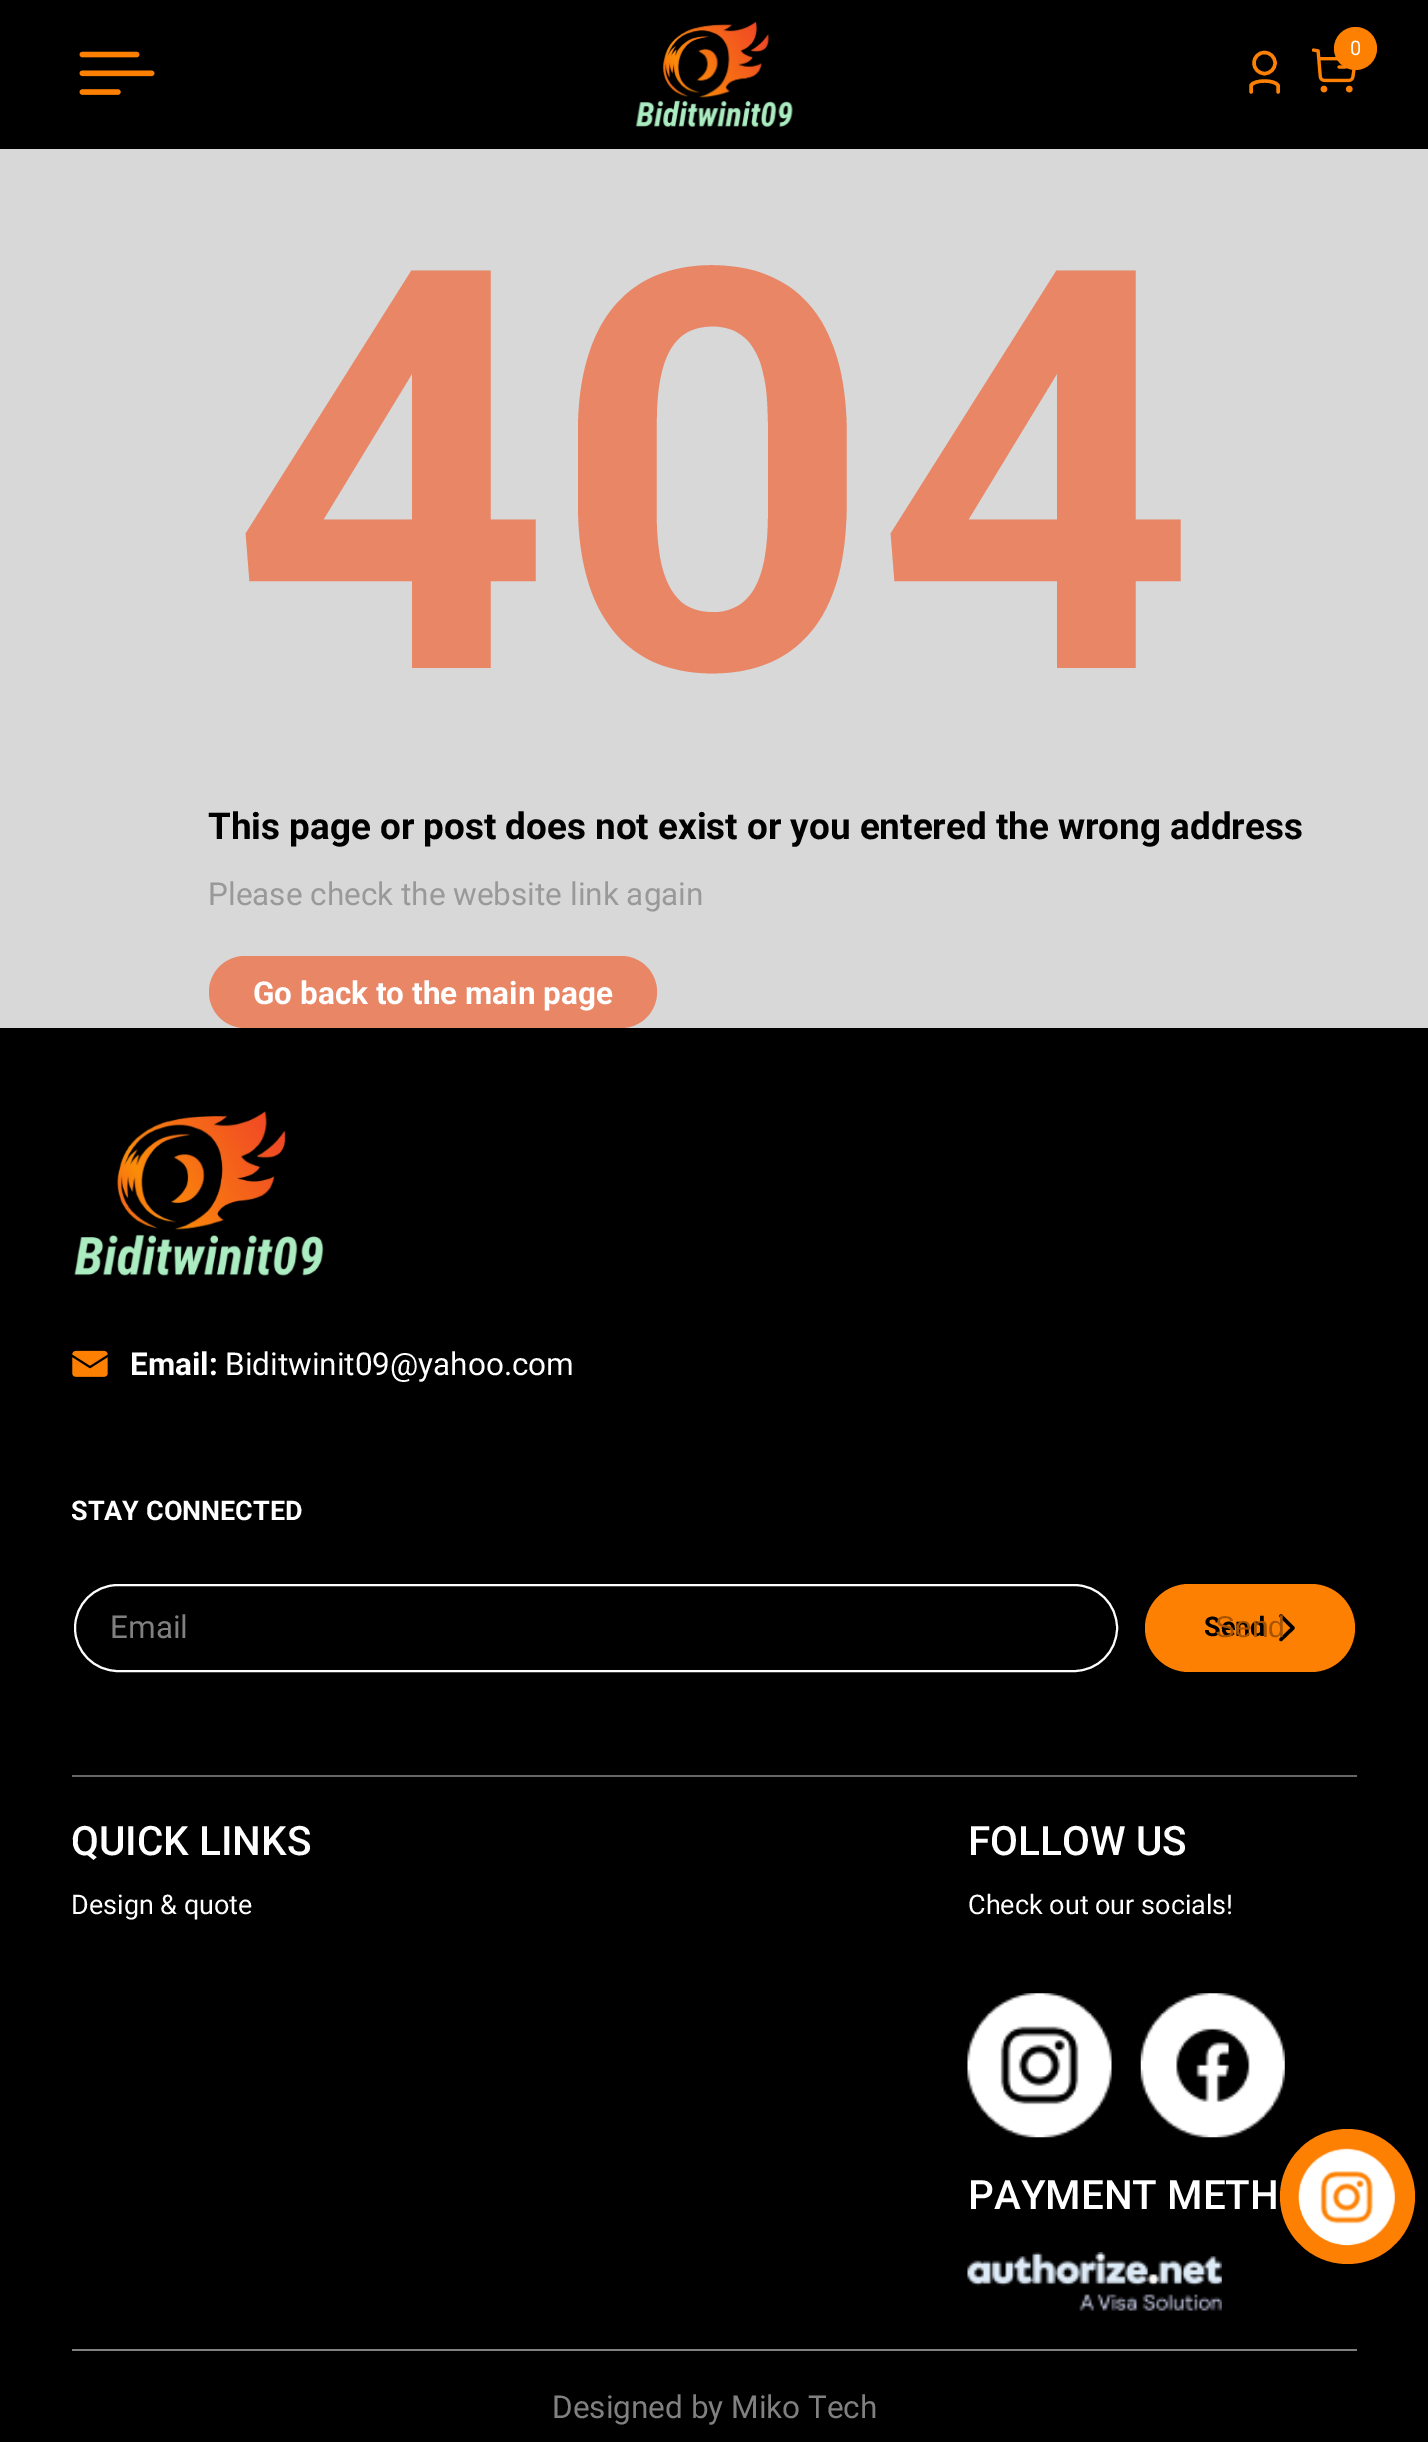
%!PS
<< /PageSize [1428 2442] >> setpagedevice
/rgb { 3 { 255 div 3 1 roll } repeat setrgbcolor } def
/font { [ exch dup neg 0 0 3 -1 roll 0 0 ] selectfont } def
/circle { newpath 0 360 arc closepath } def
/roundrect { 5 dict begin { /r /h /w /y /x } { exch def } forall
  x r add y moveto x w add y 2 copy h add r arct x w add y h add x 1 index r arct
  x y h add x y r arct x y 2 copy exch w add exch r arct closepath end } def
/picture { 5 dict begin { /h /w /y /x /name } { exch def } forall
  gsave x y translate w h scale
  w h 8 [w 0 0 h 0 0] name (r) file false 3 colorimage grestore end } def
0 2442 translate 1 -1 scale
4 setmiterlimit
0 0 0 rgb
0 0 1428 2442 rectfill
(img/1.rgb) 635 21 158 106 picture
(img/2.rgb) 1312 48 44 45 picture
253 128 2 rgb
1355.5 48.5 21.5 circle fill
3.4 setlinewidth
1264.5 63 10.5 circle stroke
1 setlinecap
1 setlinejoin
1251 92 moveto 1251 85.5 lineto 1254 79.5 1275 79.5 1278 85.5 curveto 1278 92 lineto stroke
(img/3.rgb) 79 51 76 44 picture
216 216 216 rgb
0 149 1428 879 rectfill
232 134 101 rgb
209 956 448 72 36 roundrect fill
(img/4.rgb) 74 1111 250 165 picture
(img/5.rgb) 72 1350 36 27 picture
102 102 102 rgb
72 1775 1285 2 rectfill
255 255 255 rgb
2 setlinewidth
0 setlinecap
0 setlinejoin
75 1585 1042 86 43 roundrect stroke
253 128 2 rgb
1145 1584 210 88 44 roundrect fill
0 0 0 rgb
3.4 setlinewidth
1 setlinecap
1 setlinejoin
1281 1616 moveto 1293 1628 lineto 1281 1639.5 lineto stroke
(img/6.rgb) 967 1993 145 145 picture
(img/7.rgb) 1140 1993 145 145 picture
(img/8.rgb) 967 2252 255 59 picture
128 128 128 rgb
72 2349 1285 2 rectfill
253 128 2 rgb
1347.5 2196.5 67.5 circle fill
(img/9.rgb) 1298 2148 98 98 picture
/Roboto-Regular 20 font
255 255 255 rgb
1350 55 moveto (0) show
/Roboto-Bold 562 font
232 134 101 rgb
230 668 moveto (404) show
/Roboto-Bold 36.85 font
0 0 0 rgb
208 839 moveto (This page or post does not exist or you entered the wrong address) show
/Roboto-Regular 31.5 font
153 153 153 rgb
208 905 moveto (Please check the website link again) show
/Roboto-Bold 31.5 font
255 255 255 rgb
253 1004 moveto (Go back to the main page) show
130 1375 moveto (Email:) show
/Roboto-Regular 31.5 font
225 1375 moveto (Biditwinit09@yahoo.com) show
/Roboto-Bold 27 font
71 1520 moveto (STAY CONNECTED) show
/Roboto-Regular 31.5 font
128 128 128 rgb
110 1638 moveto (Email) show
/Roboto-Bold 27 font
0 0 0 rgb
1204 1636 moveto (Send) show
/LiberationSans-Regular 30 font
167 84 1 rgb
1215 1637 moveto (Send) show
/Roboto-Medium 40.5 font
255 255 255 rgb
71 1855 moveto (QUICK LINKS) show
/Roboto-Regular 27 font
71 1914 moveto (Design & quote) show
/Roboto-Medium 40.5 font
968 1855 moveto (FOLLOW US) show
/Roboto-Regular 27 font
968 1914 moveto (Check out our socials!) show
/Roboto-Medium 40.5 font
968 2209 moveto (PAYMENT METH) show
/Roboto-Regular 31.5 font
128 128 128 rgb
552 2418 moveto (Designed by Miko Tech) show
showpage
